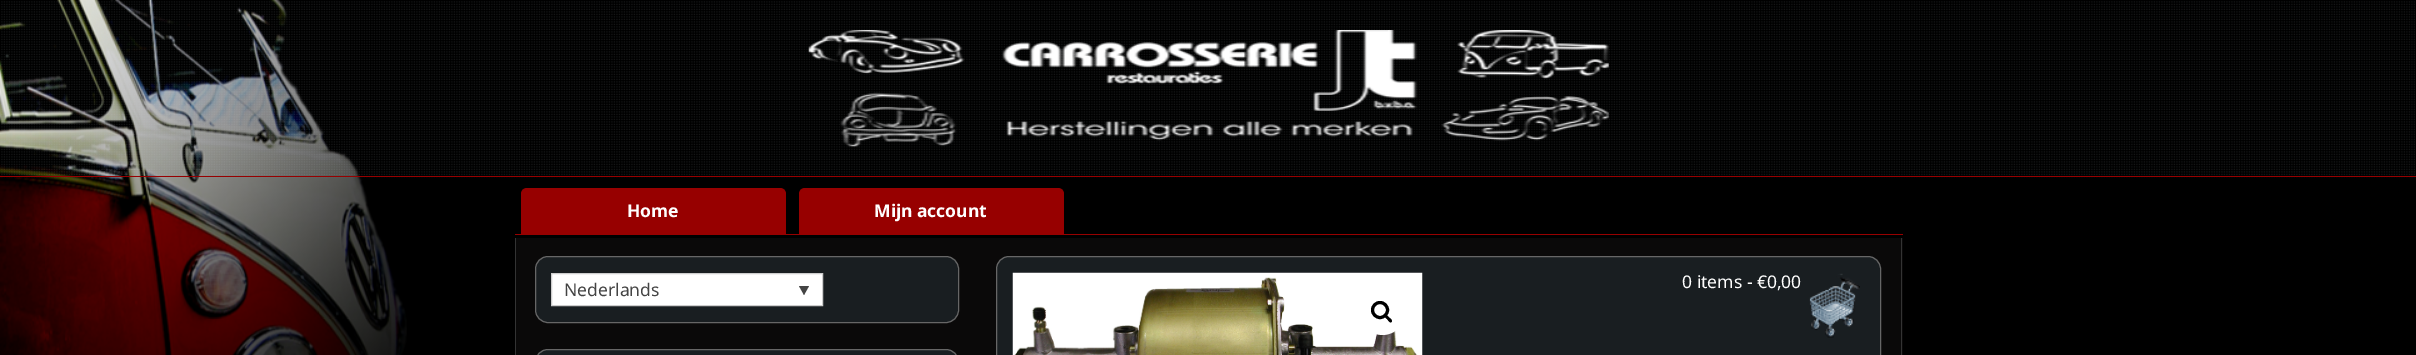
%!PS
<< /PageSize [2416 355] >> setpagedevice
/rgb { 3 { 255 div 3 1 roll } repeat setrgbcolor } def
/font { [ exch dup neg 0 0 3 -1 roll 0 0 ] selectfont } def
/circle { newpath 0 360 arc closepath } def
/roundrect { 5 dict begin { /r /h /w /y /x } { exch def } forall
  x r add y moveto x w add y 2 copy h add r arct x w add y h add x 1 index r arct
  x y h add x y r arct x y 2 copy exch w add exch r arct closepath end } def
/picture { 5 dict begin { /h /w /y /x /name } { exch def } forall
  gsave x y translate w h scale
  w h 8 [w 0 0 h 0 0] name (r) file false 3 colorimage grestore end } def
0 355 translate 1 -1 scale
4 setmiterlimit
0 0 0 rgb
0 0 2416 355 rectfill
(img/1.rgb) 0 0 407 355 picture
(img/2.rgb) 1 1 2414 177 picture
151 0 0 rgb
0 176 2416 1 rectfill
(img/3.rgb) 808 30 801 117 picture
515 234 1388 1 rectfill
527 188 moveto 780 188 lineto 783.5 188 786 190.5 786 194 curveto 786 234 lineto 521 234 lineto 521 194 lineto 521 190.5 523.5 188 527 188 curveto closepath fill
805 188 moveto 1058 188 lineto 1061.5 188 1064 190.5 1064 194 curveto 1064 234 lineto 799 234 lineto 799 194 lineto 799 190.5 801.5 188 805 188 curveto closepath fill
[
  [516 238 1387 117 10 9 9]
  [1901 238 1 117 51 51 51]
  [515 238 1 117 51 51 51]
] { aload pop rgb rectfill } forall
25 30 33 rgb
535.5 256.5 423 66 12.5 roundrect gsave fill grestore
102 102 102 rgb
stroke
255 255 255 rgb
551.5 273.5 moveto 822.5 273.5 lineto 822.5 305.5 lineto 551.5 305.5 lineto closepath gsave fill grestore
205 205 205 rgb
stroke
68 68 68 rgb
799 286 moveto 809 286 lineto 804 295 lineto closepath fill
25 30 33 rgb
535.5 349.5 423 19 12.5 roundrect gsave fill grestore
102 102 102 rgb
stroke
25 30 33 rgb
996.5 256.5 884 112 12.5 roundrect gsave fill grestore
102 102 102 rgb
stroke
(img/4.rgb) 1012 272 411 83 picture
255 255 255 rgb
1382.5 312.5 22.5 circle fill
0 0 0 rgb
3 setlinewidth
1380 310 7.5 circle stroke
1384.5 315 moveto 1386 313.5 1388 316.5 1389 317.5 curveto 1390 318 1393 320.5 1391.5 322 curveto 1390 323.5 1388 320 1387 319 curveto 1386.5 318.5 1383 316 1384.5 315 curveto closepath fill
(img/5.rgb) 1809 273 51 65 picture
/NotoSans-Bold 17.5 font
255 255 255 rgb
627 217 moveto (Home) show
874 217 moveto (Mijn account) show
/NotoSans-Regular 17.5 font
68 68 68 rgb
564 296 moveto (Nederlands) show
255 255 255 rgb
1682 288 moveto (0 items - €0,00) show
showpage
